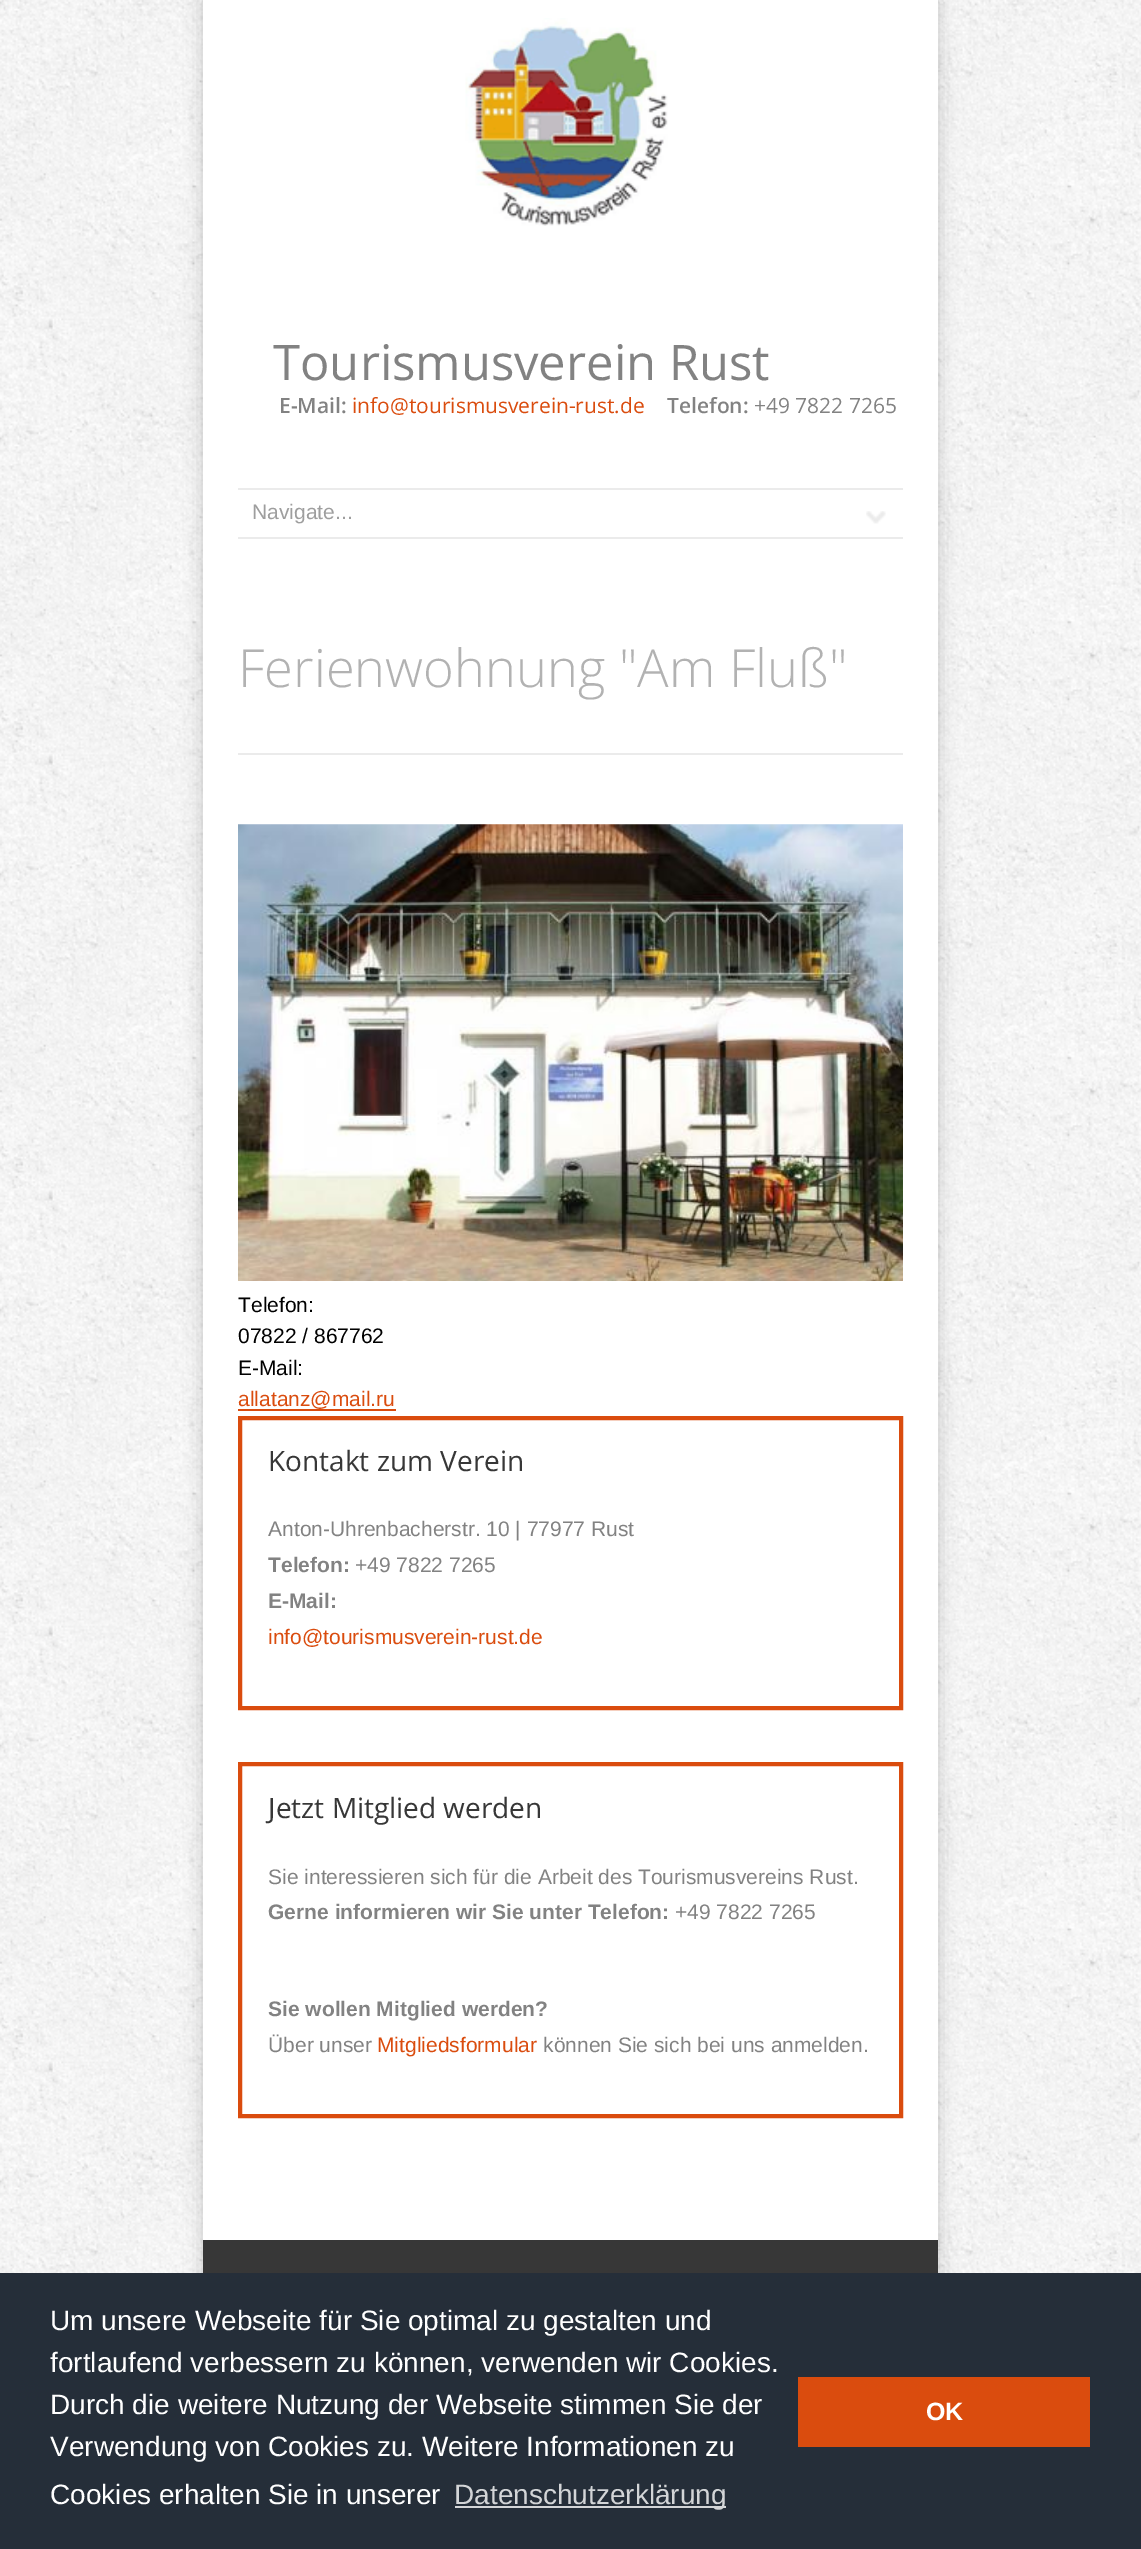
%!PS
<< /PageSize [1141 2549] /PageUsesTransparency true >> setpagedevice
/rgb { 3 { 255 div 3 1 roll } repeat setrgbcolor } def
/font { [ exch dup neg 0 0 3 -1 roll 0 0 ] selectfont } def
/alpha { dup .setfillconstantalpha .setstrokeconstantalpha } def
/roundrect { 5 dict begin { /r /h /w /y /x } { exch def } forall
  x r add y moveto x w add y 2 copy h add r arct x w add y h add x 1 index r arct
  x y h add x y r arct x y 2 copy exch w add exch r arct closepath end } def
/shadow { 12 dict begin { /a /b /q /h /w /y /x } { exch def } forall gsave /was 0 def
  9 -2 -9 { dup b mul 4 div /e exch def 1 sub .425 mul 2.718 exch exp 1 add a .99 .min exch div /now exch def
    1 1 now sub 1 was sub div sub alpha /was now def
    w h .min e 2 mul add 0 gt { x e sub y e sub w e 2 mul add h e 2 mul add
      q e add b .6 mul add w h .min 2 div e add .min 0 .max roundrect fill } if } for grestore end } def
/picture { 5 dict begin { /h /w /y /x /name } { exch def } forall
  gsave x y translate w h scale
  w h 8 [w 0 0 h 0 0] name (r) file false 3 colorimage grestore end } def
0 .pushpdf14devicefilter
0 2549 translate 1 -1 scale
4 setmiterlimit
255 255 255 rgb
0 0 1141 2549 rectfill
(img/1.rgb) 0 0 1141 2273 picture
0 0 0 rgb
203 0 735 2475 0 9 0.2 shadow
255 255 255 rgb
203 0 735 2240 rectfill
(img/2.rgb) 465 18 203 208 picture
(img/3.rgb) 866 511 20 13 picture
[
  [238 488 665 2 235 235 235]
  [238 537 665 2 235 235 235]
  [238 753 665 2 235 235 235]
] { aload pop rgb rectfill } forall
(img/4.rgb) 238 824 665 457 picture
218 76 14 rgb
238 1409 158 2 rectfill
4 setlinewidth
240 1418 661 290 rectstroke
240 1764 661 352 rectstroke
[
  [203 2240 735 33 55 55 55]
  [0 2273 1141 276 37 46 57]
  [455 2506 271 2 211 213 215]
  [798 2377 292 70 218 76 14]
] { aload pop rgb rectfill } forall
/OpenSans-Regular 49 font
130 130 130 rgb
273 380 moveto (Tourismusverein Rust) show
/OpenSans-SemiBold 21 font
279 413 moveto (E-Mail:) show
/OpenSans-Regular 21 font
218 76 14 rgb
352 413 moveto (info@tourismusverein-rust.de) show
/OpenSans-SemiBold 21 font
130 130 130 rgb
667 413 moveto (Telefon:) show
/OpenSans-Regular 21 font
754 413 moveto (+49 7822 7265) show
/LiberationSans-Regular 21 font
158 158 158 rgb
252 519 moveto (Navigate...) show
/OpenSans-Light 52.5 font
178 178 178 rgb
238 687 moveto (Ferienwohnung "Am Fluß") show
/LiberationSans-Regular 21 font
0 0 0 rgb
[
  [(Telefon:) 238 1312]
  [(07822 / 867762) 238 1343]
  [(E-Mail:) 238 1375]
] { aload pop moveto show } forall
218 76 14 rgb
238 1406 moveto (allatanz@mail.ru) show
/OpenSans-Regular 28 font
55 55 55 rgb
268 1471 moveto (Kontakt zum Verein) show
/LiberationSans-Regular 21 font
130 130 130 rgb
268 1536 moveto (Anton-Uhrenbacherstr. 10 | 77977 Rust) show
/LiberationSans-Bold 21 font
268 1572 moveto (Telefon:) show
/LiberationSans-Regular 21 font
355 1572 moveto (+49 7822 7265) show
/LiberationSans-Bold 21 font
268 1608 moveto (E-Mail:) show
/LiberationSans-Regular 21 font
218 76 14 rgb
268 1644 moveto (info@tourismusverein-rust.de) show
/OpenSans-Regular 28 font
55 55 55 rgb
268 1818 moveto (Jetzt Mitglied werden) show
/LiberationSans-Regular 21 font
130 130 130 rgb
268 1884 moveto (Sie interessieren sich für die Arbeit des Tourismusvereins Rust.) show
/LiberationSans-Bold 21 font
268 1919 moveto (Gerne informieren wir Sie unter Telefon:) show
/LiberationSans-Regular 21 font
675 1919 moveto (+49 7822 7265) show
/LiberationSans-Bold 21 font
268 2016 moveto (Sie wollen Mitglied werden?) show
/LiberationSans-Regular 21 font
268 2052 moveto (Über unser) show
218 76 14 rgb
377 2052 moveto (Mitgliedsformular) show
130 130 130 rgb
543 2052 moveto (können Sie sich bei uns anmelden.) show
/LiberationSans-Regular 28 font
255 255 255 rgb
[
  [(Um unsere Webseite für Sie optimal zu gestalten und) 50 2330]
  [(fortlaufend verbessern zu können, verwenden wir Cookies.) 50 2372]
  [(Durch die weitere Nutzung der Webseite stimmen Sie der) 50 2414]
  [(Verwendung von Cookies zu. Weitere Informationen zu) 50 2456]
  [(Cookies erhalten Sie in unserer) 50 2504]
] { aload pop moveto show } forall
211 213 215 rgb
454 2504 moveto (Datenschutzerklärung) show
/LiberationSans-Bold 25 font
255 255 255 rgb
926 2420 moveto (OK) show
.poppdf14devicefilter showpage
